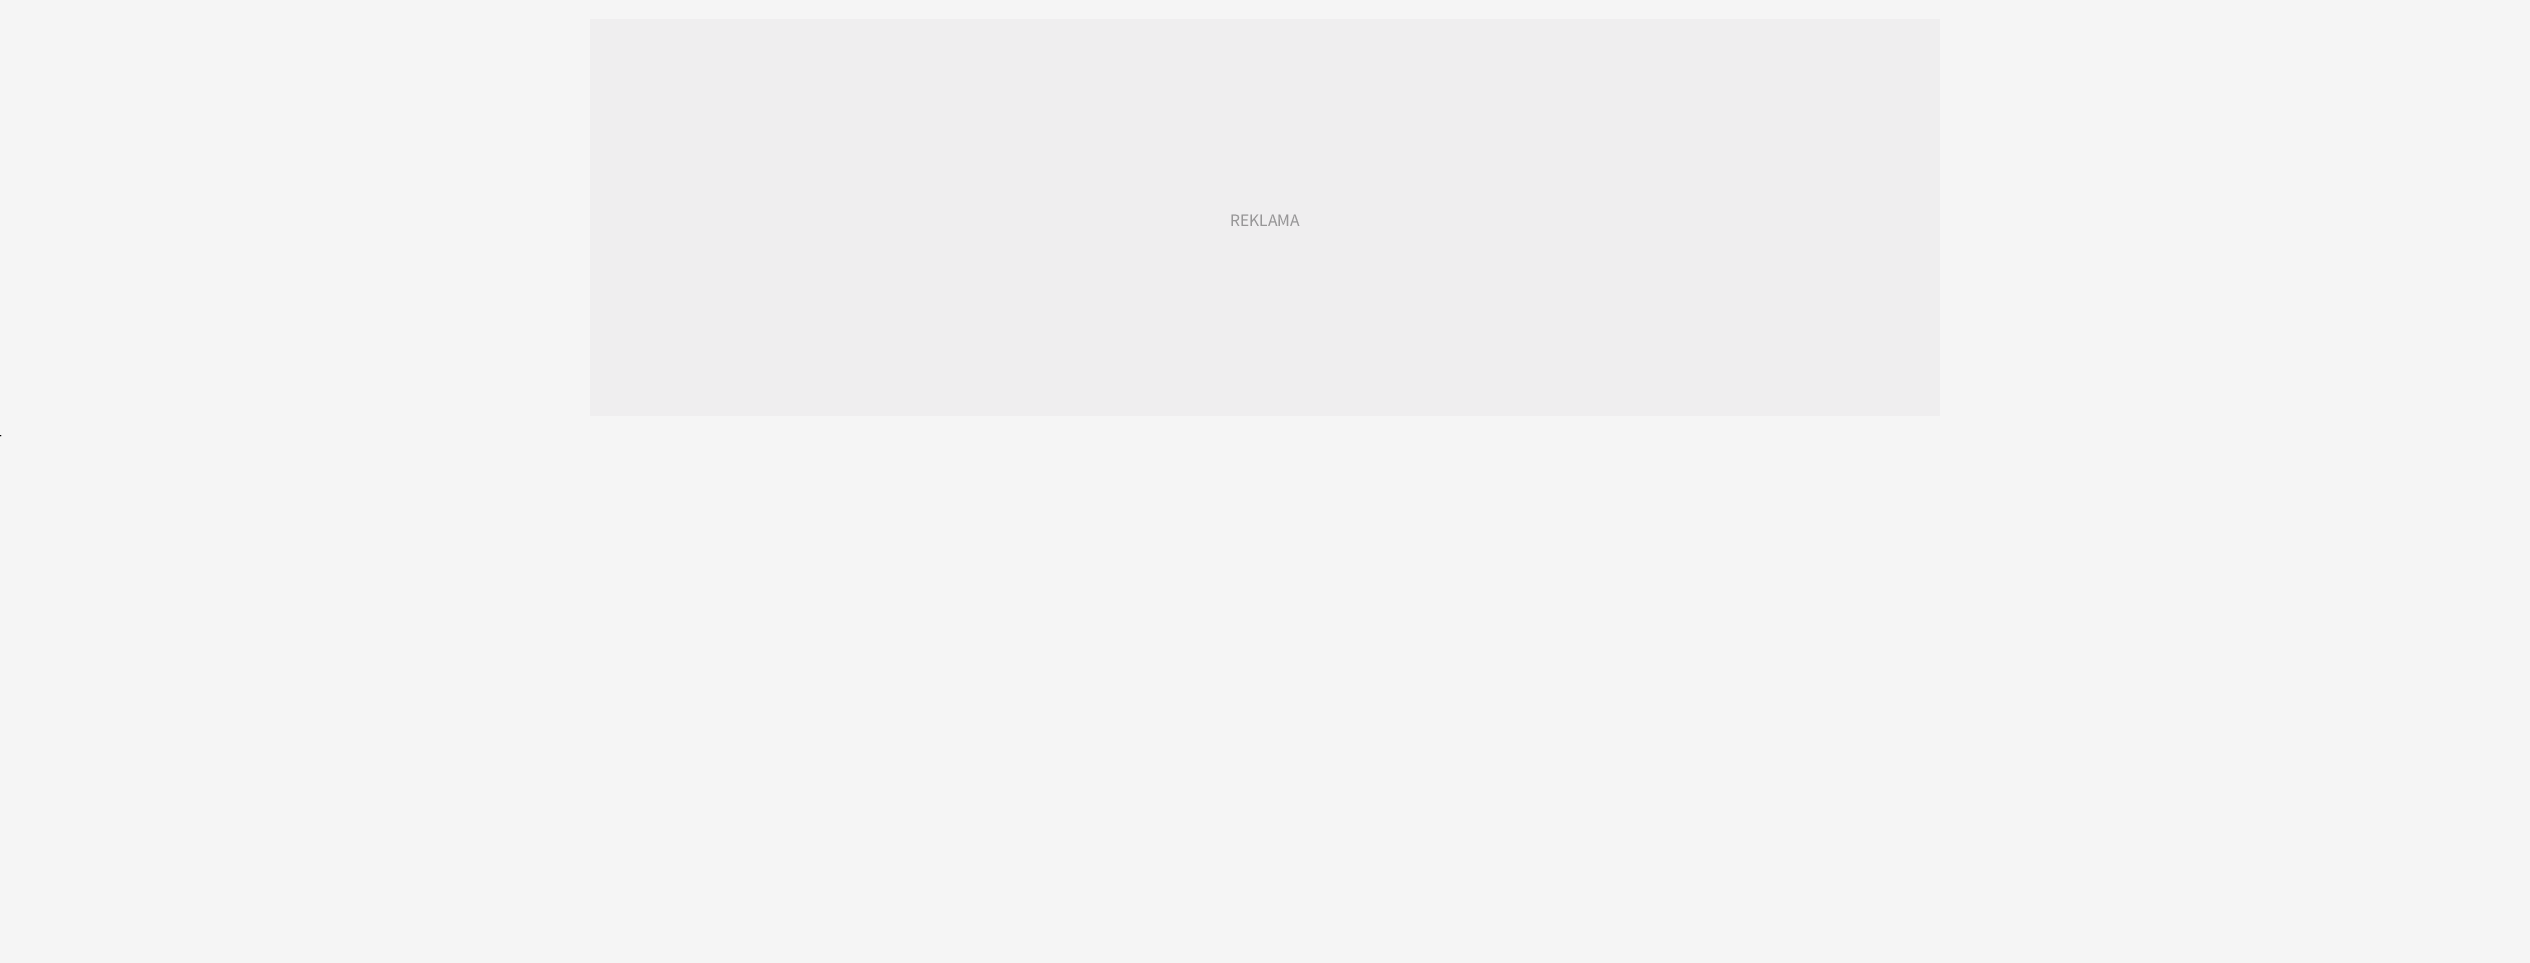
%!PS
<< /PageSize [2530 963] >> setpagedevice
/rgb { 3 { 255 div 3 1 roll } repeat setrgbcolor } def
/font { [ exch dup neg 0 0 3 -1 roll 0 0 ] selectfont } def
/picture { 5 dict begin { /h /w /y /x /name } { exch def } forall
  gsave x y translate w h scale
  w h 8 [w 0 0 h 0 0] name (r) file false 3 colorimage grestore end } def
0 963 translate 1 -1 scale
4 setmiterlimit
245 245 245 rgb
0 0 2530 963 rectfill
239 238 239 rgb
590 19 1350 397 rectfill
(img/1.rgb) 0 435 2 2 picture
/SourceSansPro-Regular 17.5 font
151 150 151 rgb
1230 226 moveto (REKLAMA) show
showpage
